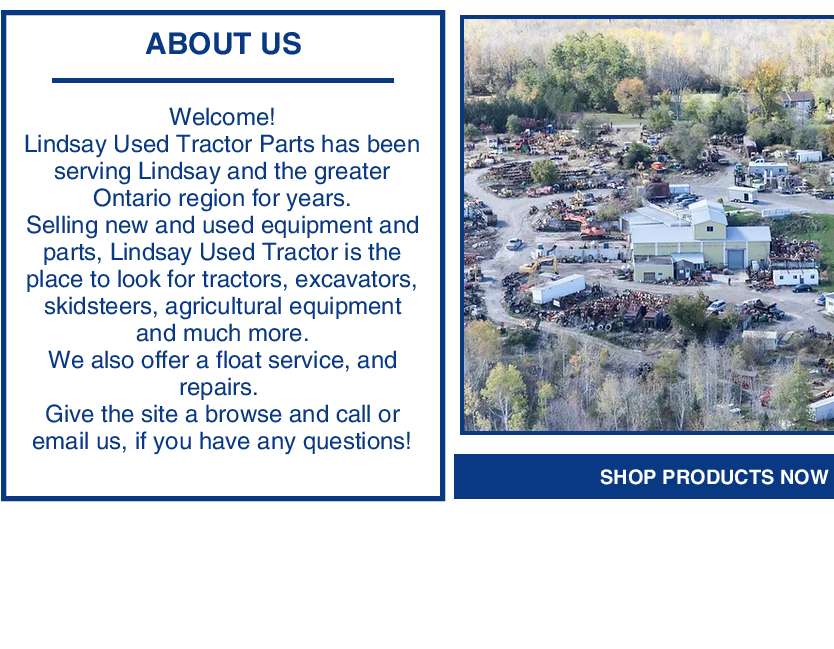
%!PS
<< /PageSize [834 649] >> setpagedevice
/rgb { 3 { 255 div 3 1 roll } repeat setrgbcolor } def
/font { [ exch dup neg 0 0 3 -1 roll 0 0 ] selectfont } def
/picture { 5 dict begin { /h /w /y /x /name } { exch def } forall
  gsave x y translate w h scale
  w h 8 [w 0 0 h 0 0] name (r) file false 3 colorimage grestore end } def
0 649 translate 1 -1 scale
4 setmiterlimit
255 255 255 rgb
0 0 834 649 rectfill
10 57 132 rgb
5 setlinewidth
3.5 12.5 439 486 rectstroke
52 78 342 5 rectfill
460 15 374 420 rectfill
(img/1.rgb) 464 19 370 412 picture
454 454 380 45 rectfill
/helvetica-Bold 30 font
145 54 moveto (ABOUT US) show
/helvetica-Regular 24 font
[
  [(Welcome!) 169 125]
  [(Lindsay Used Tractor Parts has been) 24 152]
  [(serving Lindsay and the greater) 54 179]
  [(Ontario region for years.) 93 206]
  [(Selling new and used equipment and) 26 233]
  [(parts, Lindsay Used Tractor is the) 43 260]
  [(place to look for tractors, excavators,) 26 287]
  [(skidsteers, agricultural equipment) 44 314]
  [(and much more.) 136 341]
  [(We also offer a float service, and) 48 368]
  [(repairs.) 179 395]
  [(Give the site a browse and call or) 45 422]
  [(email us, if you have any questions!) 32 449]
] { aload pop moveto show } forall
/helvetica-Bold 20 font
255 255 255 rgb
600 484 moveto (SHOP PRODUCTS NOW) show
showpage
